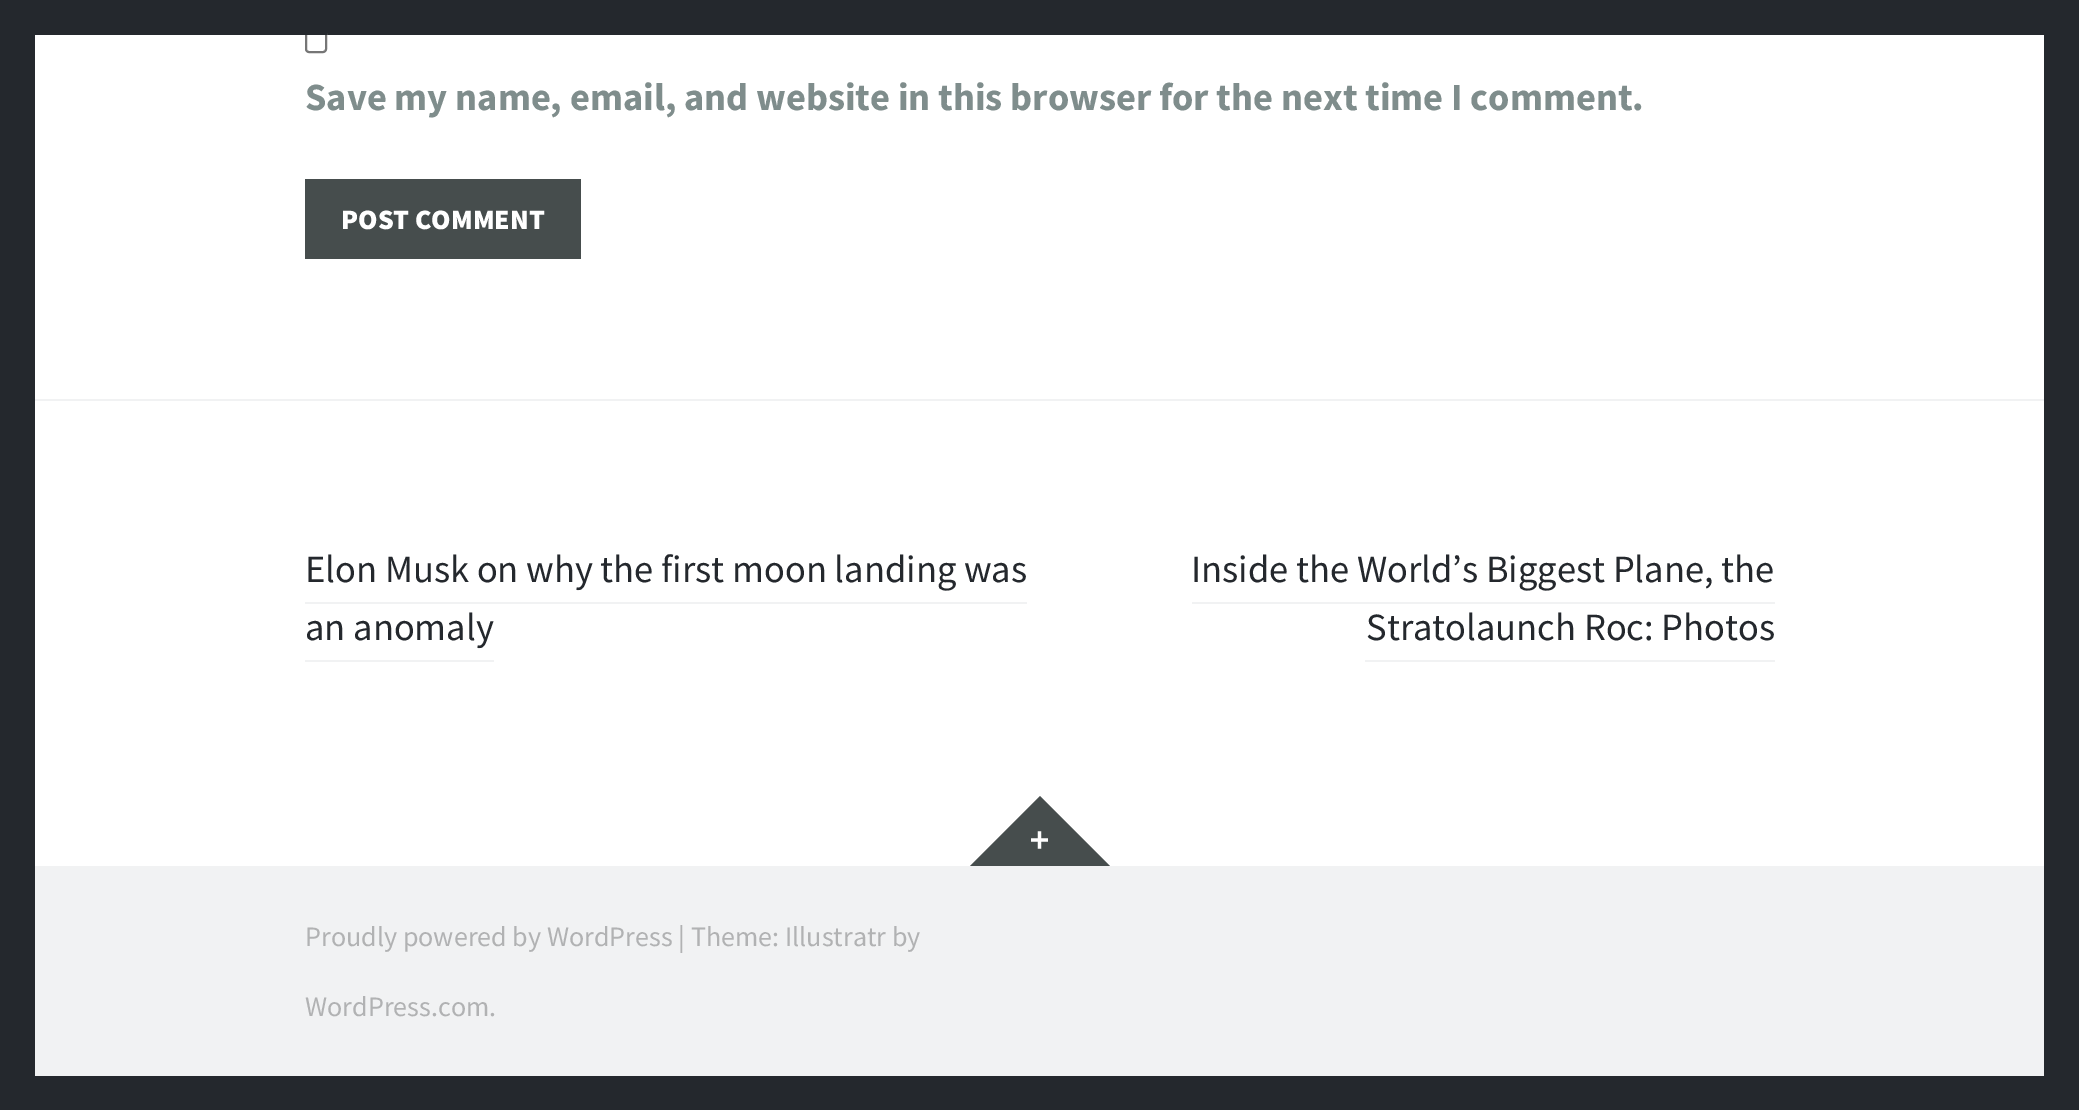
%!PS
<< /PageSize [2079 1110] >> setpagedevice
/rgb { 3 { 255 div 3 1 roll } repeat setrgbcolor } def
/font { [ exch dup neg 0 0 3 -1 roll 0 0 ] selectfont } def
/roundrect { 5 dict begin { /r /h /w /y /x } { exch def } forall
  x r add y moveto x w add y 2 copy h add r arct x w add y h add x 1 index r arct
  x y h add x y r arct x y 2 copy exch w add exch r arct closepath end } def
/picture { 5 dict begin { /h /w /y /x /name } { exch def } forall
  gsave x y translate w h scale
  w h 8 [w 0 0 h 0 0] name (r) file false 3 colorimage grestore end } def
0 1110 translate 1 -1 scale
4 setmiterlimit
36 40 45 rgb
0 0 2079 1110 rectfill
255 255 255 rgb
35 35 2009 831 rectfill
118 118 118 rgb
2 setlinewidth
306 31 20 21 3 roundrect stroke
[
  [305 30 22 5 36 40 45]
  [305 179 276 80 70 77 77]
  [35 399 2009 2 241 242 243]
  [305 602 722 2 241 242 243]
  [305 660 189 2 241 242 243]
  [1192 602 583 2 241 242 243]
  [1365 660 410 2 241 242 243]
] { aload pop rgb rectfill } forall
70 77 77 rgb
1110 866 moveto 970 866 lineto 1040 796 lineto closepath fill
(img/1.rgb) 1031 831 17 18 picture
241 242 243 rgb
35 866 2009 210 rectfill
/SourceSansPro-Bold 38.5 font
127 141 140 rgb
305 110 moveto (Save my name, email, and website in this browser for the next time I comment.) show
/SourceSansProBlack-Black 28.1 font
255 255 255 rgb
341 229 moveto (POST COMMENT) show
/SourceSansPro-Regular 38.5 font
36 40 45 rgb
[
  [(Elon Musk on why the first moon landing was) 305 582]
  [(an anomaly) 305 640]
  [(Inside the World’s Biggest Plane, the) 1191 582]
  [(Stratolaunch Roc: Photos) 1366 640]
] { aload pop moveto show } forall
/SourceSansPro-Regular 28.1 font
177 178 179 rgb
305 946 moveto (Proudly powered by WordPress | Theme: Illustratr by) show
305 1016 moveto (WordPress.com.) show
showpage
